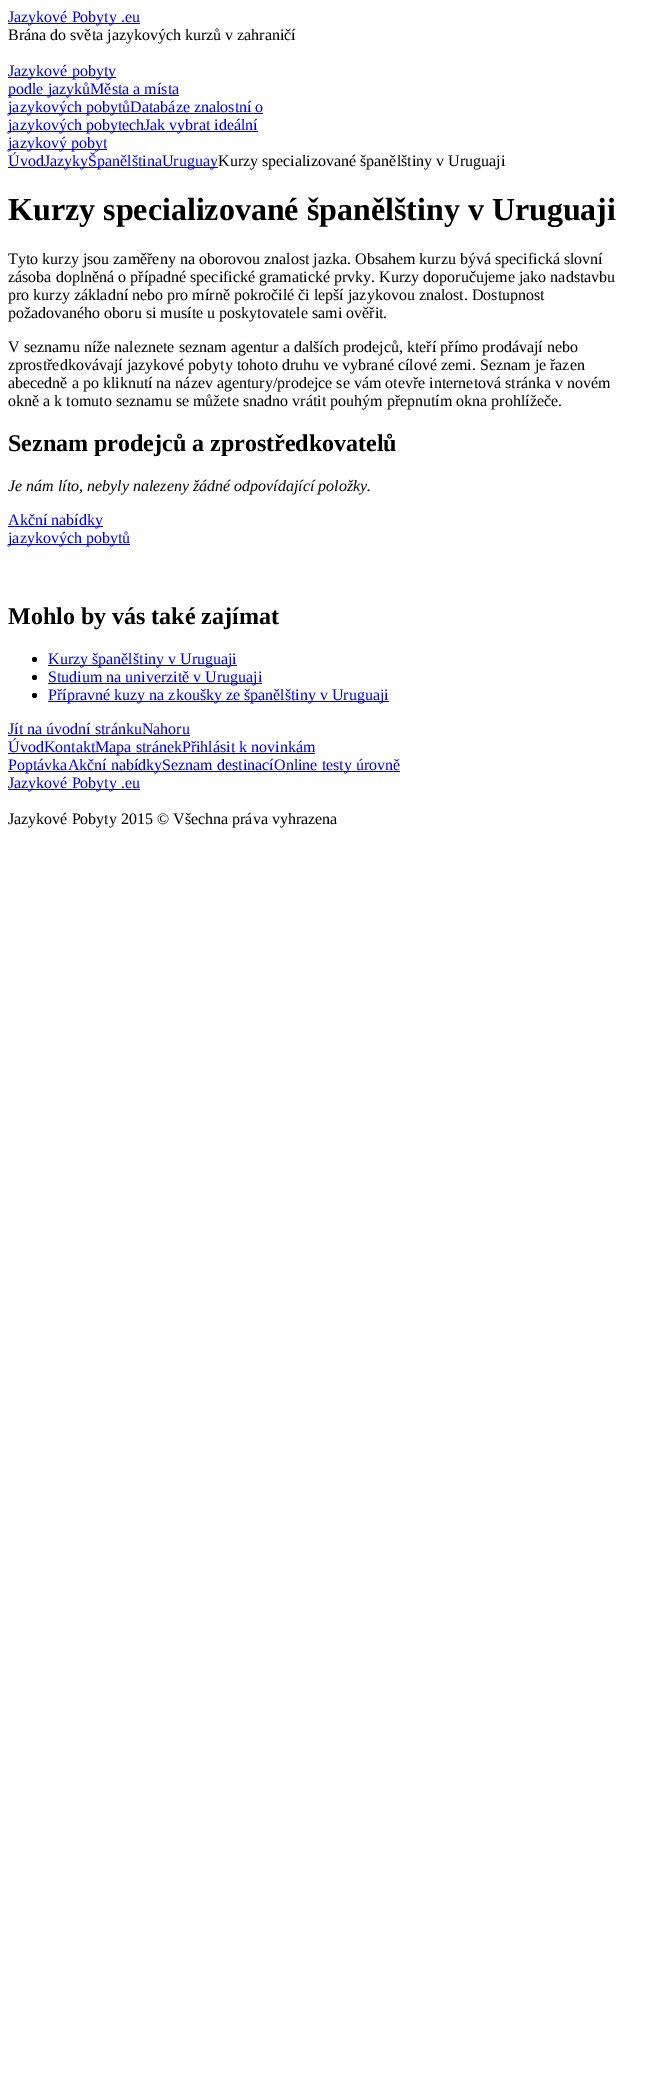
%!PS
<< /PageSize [647 2094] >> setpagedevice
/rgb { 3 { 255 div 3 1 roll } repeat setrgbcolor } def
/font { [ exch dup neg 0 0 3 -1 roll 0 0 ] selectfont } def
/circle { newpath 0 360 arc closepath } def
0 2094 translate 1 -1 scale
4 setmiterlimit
255 255 255 rgb
0 0 647 2094 rectfill
[
  [8 23 132 1 0 0 238]
  [8 77 108 1 0 0 238]
  [8 95 171 1 0 0 238]
  [8 113 255 1 0 0 238]
  [8 131 136 1 0 0 238]
  [144 131 114 1 0 0 238]
  [8 149 99 1 0 0 238]
  [8 167 210 1 0 0 238]
  [8 526 95 1 0 0 238]
  [8 544 122 1 0 0 238]
] { aload pop rgb rectfill } forall
0 0 0 rgb
34.5 659.5 2.5 circle fill
0 0 238 rgb
48 665 189 1 rectfill
0 0 0 rgb
34.5 677.5 2.5 circle fill
0 0 238 rgb
48 683 214 1 rectfill
0 0 0 rgb
34.5 695.5 2.5 circle fill
[
  [48 701 341 1 0 0 238]
  [8 735 182 1 0 0 238]
  [8 753 307 1 0 0 238]
  [8 771 154 1 0 0 238]
  [162 771 238 1 0 0 238]
  [8 789 132 1 0 0 238]
] { aload pop rgb rectfill } forall
/LiberationSerif-Regular 16 font
8 22 moveto (Jazykové Pobyty .eu) show
0 0 0 rgb
8 40 moveto (Brána do světa jazykových kurzů v zahraničí) show
0 0 238 rgb
[
  [(Jazykové pobyty) 8 76]
  [(podle jazykůMěsta a místa) 8 94]
  [(jazykových pobytůDatabáze znalostní o) 8 112]
  [(jazykových pobytech) 8 130]
  [(Jak vybrat ideální) 144 130]
  [(jazykový pobyt) 8 148]
  [(ÚvodJazykyŠpanělštinaUruguay) 8 166]
] { aload pop moveto show } forall
0 0 0 rgb
218 166 moveto (Kurzy specializované španělštiny v Uruguaji) show
/LiberationSerif-Bold 32 font
8 220 moveto (Kurzy specializované španělštiny v Uruguaji) show
/LiberationSerif-Regular 16 font
[
  [(Tyto kurzy jsou zaměřeny na oborovou znalost jazka. Obsahem kurzu bývá specifická slovní) 8 264]
  [(zásoba doplněná o případné specifické gramatické prvky. Kurzy doporučujeme jako nadstavbu) 8 282]
  [(pro kurzy základní nebo pro mírně pokročilé či lepší jazykovou znalost. Dostupnost) 8 300]
  [(požadovaného oboru si musíte u poskytovatele sami ověřit.) 8 318]
  [(V seznamu níže naleznete seznam agentur a dalších prodejců, kteří přímo prodávají nebo) 8 352]
  [(zprostředkovávají jazykové pobyty tohoto druhu ve vybrané cílové zemi. Seznam je řazen) 8 370]
  [(abecedně a po kliknutí na název agentury/prodejce se vám otevře internetová stránka v novém) 8 388]
  [(okně a k tomuto seznamu se můžete snadno vrátit pouhým přepnutím okna prohlížeče.) 8 406]
] { aload pop moveto show } forall
/LiberationSerif-Bold 24 font
8 451 moveto (Seznam prodejců a zprostředkovatelů) show
/LiberationSerif-Italic 16 font
8 491 moveto (Je nám líto, nebyly nalezeny žádné odpovídající položky.) show
/LiberationSerif-Regular 16 font
0 0 238 rgb
8 525 moveto (Akční nabídky) show
8 543 moveto (jazykových pobytů) show
/LiberationSerif-Bold 24 font
0 0 0 rgb
8 624 moveto (Mohlo by vás také zajímat) show
/LiberationSerif-Regular 16 font
0 0 238 rgb
[
  [(Kurzy španělštiny v Uruguaji) 48 664]
  [(Studium na univerzitě v Uruguaji) 48 682]
  [(Přípravné kuzy na zkoušky ze španělštiny v Uruguaji) 48 700]
  [(Jít na úvodní stránkuNahoru) 8 734]
  [(ÚvodKontaktMapa stránekPřihlásit k novinkám) 8 752]
  [(PoptávkaAkční nabídkySeznam destinací) 8 770]
  [(Online testy úrovně) 274 770]
  [(Jazykové Pobyty .eu) 8 788]
] { aload pop moveto show } forall
0 0 0 rgb
8 824 moveto (Jazykové Pobyty 2015 © Všechna práva vyhrazena) show
showpage
